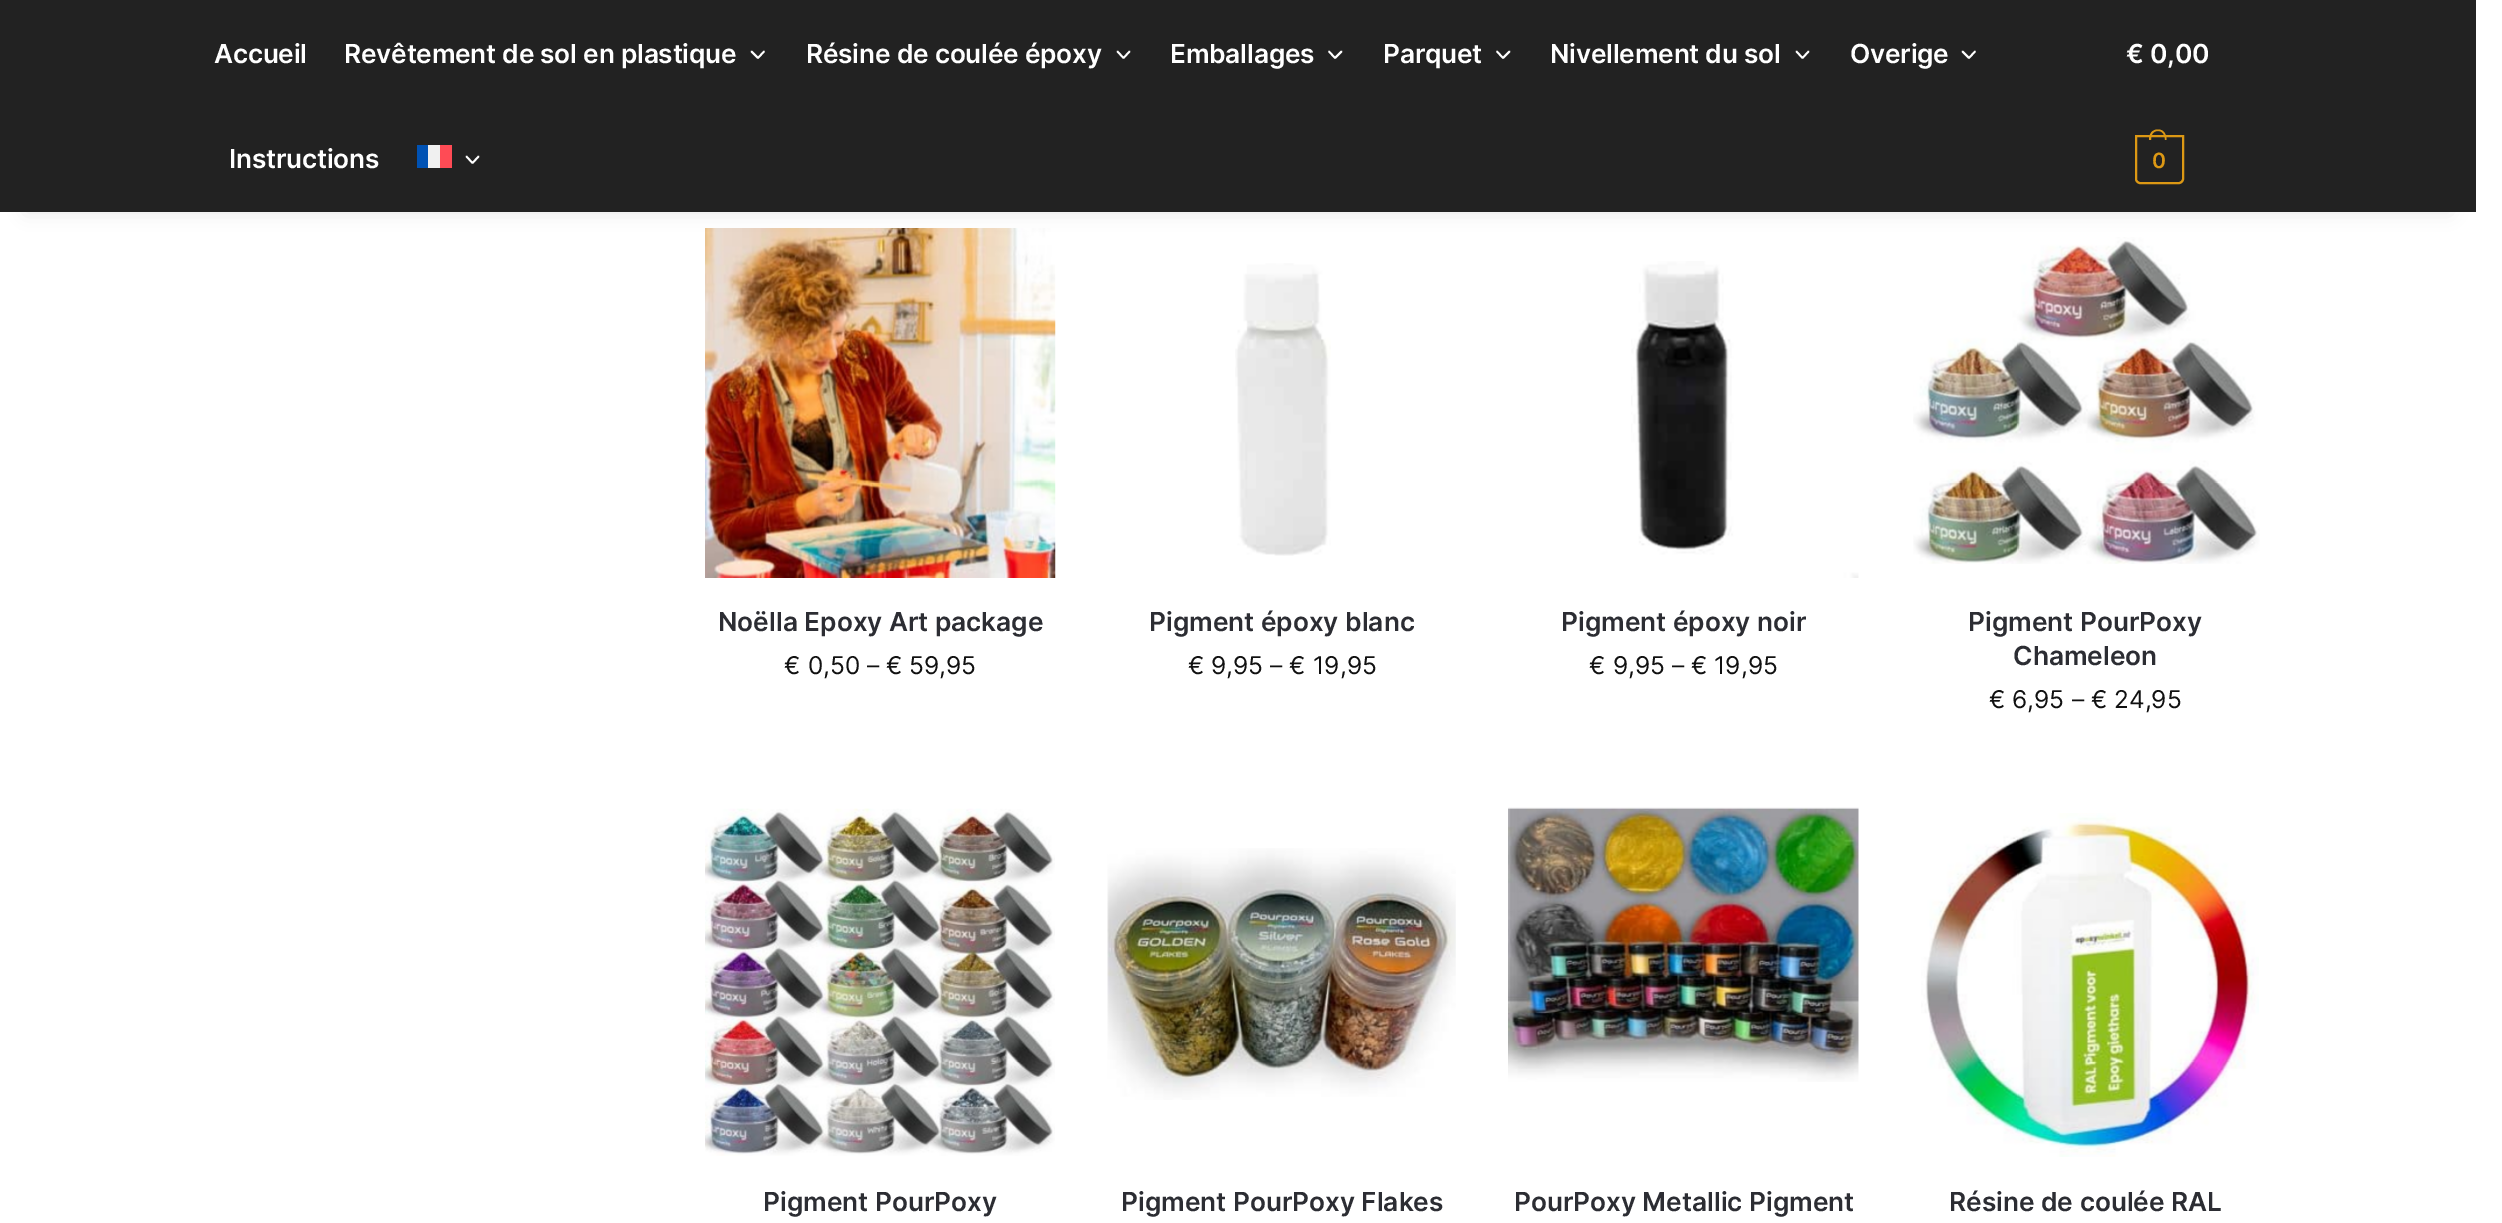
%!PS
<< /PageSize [2502 1223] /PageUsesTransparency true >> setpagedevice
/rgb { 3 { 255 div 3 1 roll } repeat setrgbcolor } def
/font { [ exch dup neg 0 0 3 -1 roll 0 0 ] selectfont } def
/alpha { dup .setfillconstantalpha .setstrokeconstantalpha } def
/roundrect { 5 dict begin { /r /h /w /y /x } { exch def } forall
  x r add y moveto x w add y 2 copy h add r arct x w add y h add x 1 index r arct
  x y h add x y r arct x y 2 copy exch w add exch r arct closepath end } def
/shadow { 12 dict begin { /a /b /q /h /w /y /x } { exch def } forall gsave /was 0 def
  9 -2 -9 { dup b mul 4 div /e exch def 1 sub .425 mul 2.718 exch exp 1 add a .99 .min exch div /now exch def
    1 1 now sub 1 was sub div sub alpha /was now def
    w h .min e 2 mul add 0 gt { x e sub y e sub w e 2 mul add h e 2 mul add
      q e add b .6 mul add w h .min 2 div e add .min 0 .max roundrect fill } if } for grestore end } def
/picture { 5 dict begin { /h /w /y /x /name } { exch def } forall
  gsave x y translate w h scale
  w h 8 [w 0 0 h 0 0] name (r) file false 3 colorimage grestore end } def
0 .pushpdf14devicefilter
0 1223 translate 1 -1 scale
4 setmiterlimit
255 255 255 rgb
0 0 2502 1223 rectfill
(img/1.rgb) 705 228 351 350 picture
(img/4.rgb) 1913 237 347 327 picture
0 0 0 rgb
26 53 2424 159 0 9 0.1 shadow
34 34 34 rgb
0 0 2476 212 rectfill
255 255 255 rgb
1.8 setlinewidth
1 setlinecap
1 setlinejoin
764 51.5 moveto 758 58 lineto 751.5 51.5 lineto stroke
1129.5 51.5 moveto 1123.5 58 lineto 1117.5 51.5 lineto stroke
1341.5 51.5 moveto 1335 58 lineto 1329 51.5 lineto stroke
1509.5 51.5 moveto 1503 58 lineto 1497 51.5 lineto stroke
1808.5 51.5 moveto 1802.5 58 lineto 1796.5 51.5 lineto stroke
1975 51.5 moveto 1969 58 lineto 1962.5 51.5 lineto stroke
[
  [428 145 12 23 240 240 240]
  [440 145 12 23 255 75 85]
  [417 145 11 23 0 82 180]
] { aload pop rgb rectfill } forall
255 255 255 rgb
478.5 156.5 moveto 472.5 163 lineto 466.5 156.5 lineto stroke
220 152 20 rgb
2 setlinewidth
0 setlinecap
0 setlinejoin
2136 136 moveto 2183 136 lineto 2183 179 lineto 2183 181 2181 183 2179 183 curveto 2140 183 lineto 2138 183 2136 181 2136 179 curveto closepath stroke
2158 129.5 moveto 2164 129.5 2166.5 134.5 2166.5 140 curveto 2149 140 lineto 2149 134.5 2151.5 129.5 2158 129.5 curveto closepath 2158 131 moveto 2163 131 2165 135.5 2165 140 curveto 2151 140 lineto 2151 135.5 2152.5 131 2158 131 curveto closepath eofill
(img/2.rgb) 1235 263 96 293 picture
(img/3.rgb) 1631 261 228 317 picture
(img/5.rgb) 705 808 350 348 picture
(img/6.rgb) 1107 848 349 252 picture
(img/7.rgb) 1508 807 351 275 picture
(img/8.rgb) 1921 813 338 344 picture
/Inter-SemiBold 26.25 font
255 255 255 rgb
214 63 moveto -0.2 0 (Accueil) ashow
344 63 moveto -0.2 0 (Revêtement de sol en plastique) ashow
806 63 moveto -0.2 0 (Résine de coulée époxy) ashow
1170 63 moveto -0.2 0 (Emballages) ashow
1383 63 moveto -0.2 0 (Parquet) ashow
1550 63 moveto -0.2 0 (Nivellement du sol) ashow
1850 63 moveto -0.2 0 (Overige) ashow
229 168 moveto -0.2 0 (Instructions) ashow
2126 63 moveto -0.2 0 (€ 0,00) ashow
/Inter-SemiBold 21 font
220 152 20 rgb
2152 168 moveto -1 0 (0) ashow
/Inter-SemiBold 26.25 font
44 45 51 rgb
718 631 moveto (Noëlla Epoxy Art package) show
/Inter-Regular 24.5 font
17 17 17 rgb
[
  [(€) 784 674]
  [(0,50) 808 674]
  [(– €) 867 674]
  [(59,95) 909 674]
] { aload pop moveto show } forall
/Inter-SemiBold 26.25 font
44 45 51 rgb
1149 631 moveto (Pigment époxy blanc) show
/Inter-Regular 24.5 font
17 17 17 rgb
[
  [(€) 1188 674]
  [(9,95) 1211 674]
  [(– €) 1270 674]
  [(19,95) 1313 674]
] { aload pop moveto show } forall
/Inter-SemiBold 26.25 font
44 45 51 rgb
1561 631 moveto (Pigment époxy noir) show
/Inter-Regular 24.5 font
17 17 17 rgb
[
  [(€) 1589 674]
  [(9,95) 1613 674]
  [(– €) 1672 674]
  [(19,95) 1714 674]
] { aload pop moveto show } forall
/Inter-SemiBold 26.25 font
44 45 51 rgb
1968 631 moveto (Pigment PourPoxy) show
2013 665 moveto (Chameleon) show
/Inter-Regular 24.5 font
17 17 17 rgb
[
  [(€) 1989 708]
  [(6,95) 2012 708]
  [(– €) 2072 708]
  [(24,95) 2114 708]
] { aload pop moveto show } forall
/Inter-SemiBold 26.25 font
44 45 51 rgb
[
  [(Pigment PourPoxy) 763 1211]
  [(Pigment PourPoxy Flakes) 1121 1211]
  [(PourPoxy Metallic Pigment) 1514 1211]
  [(Résine de coulée RAL) 1949 1211]
] { aload pop moveto show } forall
.poppdf14devicefilter showpage
